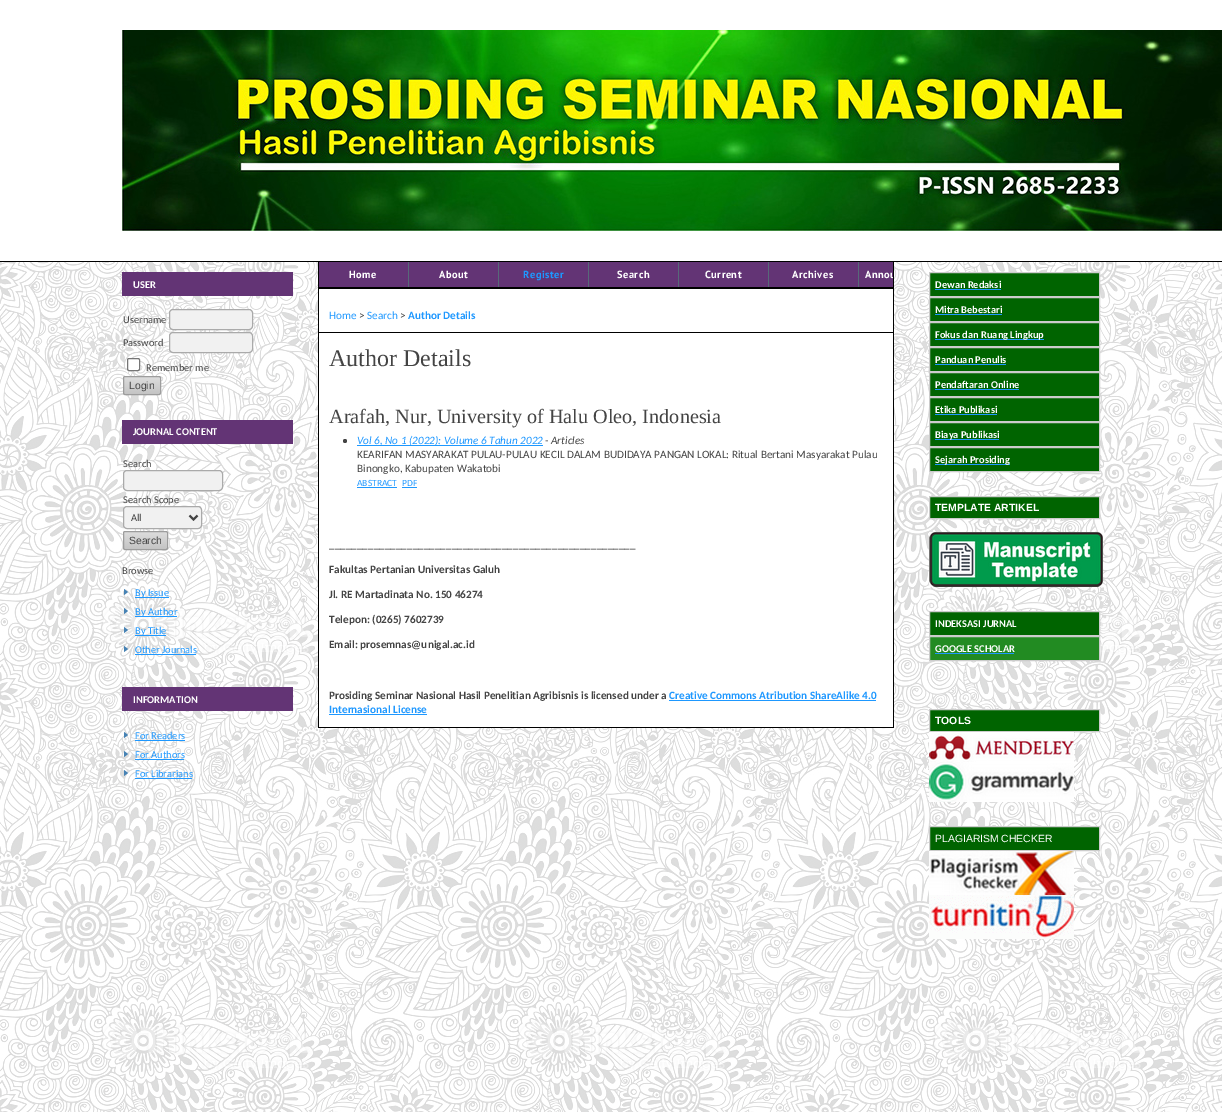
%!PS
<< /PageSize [1222 1112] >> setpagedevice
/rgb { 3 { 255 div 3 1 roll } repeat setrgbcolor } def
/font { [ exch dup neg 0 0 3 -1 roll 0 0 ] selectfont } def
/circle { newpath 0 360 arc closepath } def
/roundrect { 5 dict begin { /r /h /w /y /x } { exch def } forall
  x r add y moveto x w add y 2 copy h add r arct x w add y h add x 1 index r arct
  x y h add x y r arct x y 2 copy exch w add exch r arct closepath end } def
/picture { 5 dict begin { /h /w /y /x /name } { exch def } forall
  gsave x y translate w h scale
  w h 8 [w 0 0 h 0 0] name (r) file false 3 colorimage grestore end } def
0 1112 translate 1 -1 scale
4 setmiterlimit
255 255 255 rgb
0 0 1222 1112 rectfill
(img/1.rgb) 0 262 1222 850 picture
0 0 0 rgb
0 261 1222 1 rectfill
(img/2.rgb) 122 30 1100 201 picture
[
  [319 289 574 438 255 255 255]
  [893 262 1 466 0 0 0]
  [318 727 576 1 0 0 0]
  [318 262 1 466 0 0 0]
  [319 262 574 25 99 52 117]
  [319 287 574 2 0 0 0]
  [408 262 1 25 87 105 121]
  [498 262 1 25 87 105 121]
  [588 262 1 25 87 105 121]
  [678 262 1 25 87 105 121]
  [768 262 1 25 87 105 121]
  [858 262 1 25 87 105 121]
  [319 332 574 1 0 0 0]
] { aload pop rgb rectfill } forall
68 68 68 rgb
345 441 2 circle fill
[
  [357 445 186 1 30 152 255]
  [357 487 40 1 30 152 255]
  [402 487 15 1 30 152 255]
  [669 700 207 1 30 152 255]
  [329 714 98 1 30 152 255]
  [122 272 171 24 99 52 117]
] { aload pop rgb rectfill } forall
241 241 241 rgb
169.5 309.5 83 20 3.5 roundrect gsave fill grestore
170 170 170 rgb
stroke
241 241 241 rgb
169.5 332.5 83 20 3.5 roundrect gsave fill grestore
170 170 170 rgb
stroke
255 255 255 rgb
127.5 358.5 12 12 1.5 roundrect gsave fill grestore
118 118 118 rgb
stroke
gsave
123 376 38 19 2 roundrect clip newpath
gsave 123 377 moveto 161 377 lineto 161 394 lineto 123 394 lineto closepath clip newpath
<< /ShadingType 2 /ColorSpace /DeviceRGB /Coords [142 377 142 394] /Extend [true true] /Function << /FunctionType 2 /Domain [0 1] /C0 [0.867 0.867 0.867] /C1 [0.769 0.769 0.769] /N 1 >> >> shfill grestore
grestore
157 157 157 rgb
123.5 376.5 37 18 1.5 roundrect stroke
99 52 117 rgb
122 420 171 24 rectfill
241 241 241 rgb
123.5 470.5 99 20 3.5 roundrect gsave fill grestore
170 170 170 rgb
stroke
241 241 241 rgb
123.5 506.5 78 22 3.5 roundrect gsave fill grestore
170 170 170 rgb
stroke
68 68 68 rgb
2 setlinewidth
189.5 515.5 moveto 193.5 519.5 lineto 197.5 515.5 lineto stroke
gsave
123 531 45 19 2 roundrect clip newpath
gsave 123 532 moveto 168 532 lineto 168 549 lineto 123 549 lineto closepath clip newpath
<< /ShadingType 2 /ColorSpace /DeviceRGB /Coords [146 532 146 549] /Extend [true true] /Function << /FunctionType 2 /Domain [0 1] /C0 [0.867 0.867 0.867] /C1 [0.769 0.769 0.769] /N 1 >> >> shfill grestore
grestore
157 157 157 rgb
1 setlinewidth
123.5 531.5 44 18 1.5 roundrect stroke
70 130 180 rgb
124 595 moveto 124 589 lineto 128 592 lineto closepath 124 614 moveto 124 608 lineto 128 611 lineto closepath 124 633 moveto 124 627 lineto 128 630 lineto closepath 124 652 moveto 124 646 lineto 128 649 lineto closepath fill
[
  [135 597 34 1 30 152 255]
  [135 616 42 1 30 152 255]
  [135 635 31 1 30 152 255]
  [135 654 61 1 30 152 255]
  [122 687 171 24 99 52 117]
] { aload pop rgb rectfill } forall
70 130 180 rgb
124 738 moveto 124 732 lineto 128 735 lineto closepath 124 757 moveto 124 751 lineto 128 754 lineto closepath 124 776 moveto 124 770 lineto 128 773 lineto closepath fill
[
  [135 740 50 1 30 152 255]
  [135 759 49 1 30 152 255]
  [135 778 57 1 30 152 255]
] { aload pop rgb rectfill } forall
0 100 0 rgb
929.5 272.5 moveto 1099.5 272.5 lineto 1099.5 296.5 lineto 929.5 296.5 lineto closepath gsave fill grestore
204 204 204 rgb
stroke
30 152 255 rgb
935 289 66 1 rectfill
0 100 0 rgb
929.5 297.5 moveto 1099.5 297.5 lineto 1099.5 321.5 lineto 929.5 321.5 lineto closepath gsave fill grestore
204 204 204 rgb
stroke
30 152 255 rgb
935 314 67 1 rectfill
0 100 0 rgb
929.5 322.5 moveto 1099.5 322.5 lineto 1099.5 346.5 lineto 929.5 346.5 lineto closepath gsave fill grestore
204 204 204 rgb
stroke
30 152 255 rgb
935 339 109 1 rectfill
0 100 0 rgb
929.5 347.5 moveto 1099.5 347.5 lineto 1099.5 371.5 lineto 929.5 371.5 lineto closepath gsave fill grestore
204 204 204 rgb
stroke
30 152 255 rgb
935 364 71 1 rectfill
0 100 0 rgb
929.5 372.5 moveto 1099.5 372.5 lineto 1099.5 396.5 lineto 929.5 396.5 lineto closepath gsave fill grestore
204 204 204 rgb
stroke
30 152 255 rgb
935 389 84 1 rectfill
0 100 0 rgb
929.5 397.5 moveto 1099.5 397.5 lineto 1099.5 421.5 lineto 929.5 421.5 lineto closepath gsave fill grestore
204 204 204 rgb
stroke
30 152 255 rgb
935 414 62 1 rectfill
0 100 0 rgb
929.5 422.5 moveto 1099.5 422.5 lineto 1099.5 446.5 lineto 929.5 446.5 lineto closepath gsave fill grestore
204 204 204 rgb
stroke
30 152 255 rgb
935 439 64 1 rectfill
0 100 0 rgb
929.5 447.5 moveto 1099.5 447.5 lineto 1099.5 471.5 lineto 929.5 471.5 lineto closepath gsave fill grestore
204 204 204 rgb
stroke
30 152 255 rgb
935 464 75 1 rectfill
0 100 0 rgb
929.5 496.5 moveto 1099.5 496.5 lineto 1099.5 518.5 lineto 929.5 518.5 lineto closepath gsave fill grestore
204 204 204 rgb
stroke
(img/3.rgb) 929 532 174 55 picture
0 100 0 rgb
929.5 611.5 moveto 1099.5 611.5 lineto 1099.5 635.5 lineto 929.5 635.5 lineto closepath gsave fill grestore
204 204 204 rgb
stroke
34 139 34 rgb
929.5 636.5 moveto 1099.5 636.5 lineto 1099.5 660.5 lineto 929.5 660.5 lineto closepath gsave fill grestore
204 204 204 rgb
stroke
30 152 255 rgb
935 653 79 1 rectfill
0 100 0 rgb
929.5 709.5 moveto 1099.5 709.5 lineto 1099.5 731.5 lineto 929.5 731.5 lineto closepath gsave fill grestore
204 204 204 rgb
stroke
(img/4.rgb) 929 732 145 30 picture
(img/5.rgb) 929 762 145 40 picture
0 100 0 rgb
929.5 826.5 moveto 1099.5 826.5 lineto 1099.5 850.5 lineto 929.5 850.5 lineto closepath gsave fill grestore
204 204 204 rgb
stroke
(img/6.rgb) 929 851 145 44 picture
(img/7.rgb) 929 895 145 44 picture
/PTSans-Bold 10.4 font
255 255 255 rgb
349 278 moveto 0.5 0 (Home) ashow
439 278 moveto 0.5 0 (About) ashow
30 152 255 rgb
523 278 moveto 0.5 0 (Register) ashow
255 255 255 rgb
617 278 moveto 0.5 0 (Search) ashow
705 278 moveto 0.5 0 (Current) ashow
792 278 moveto 0.5 0 (Archives) ashow
gsave
319 262 574 465 rectclip
865 278 moveto 0.5 0 (Annou) ashow
grestore
/Carlito-Regular 11.2 font
30 152 255 rgb
329 319 moveto (Home) show
68 68 68 rgb
359 319 moveto (>) show
30 152 255 rgb
367 319 moveto (Search) show
68 68 68 rgb
400 319 moveto (>) show
/Carlito-Bold 11.2 font
30 152 255 rgb
408 319 moveto (Author Details) show
/LiberationSerif-Regular 24 font
68 68 68 rgb
329 366 moveto (Author Details) show
/LiberationSerif-Regular 20.2 font
329 423 moveto (Arafah, Nur, University of Halu Oleo, Indonesia) show
/Carlito-Italic 11.2 font
30 152 255 rgb
357 444 moveto (Vol 6, No 1 \(2022\): Volume 6 Tahun 2022) show
68 68 68 rgb
545 444 moveto (- Articles) show
/Carlito-Regular 11.2 font
357 458 moveto (KEARIFAN MASYARAKAT PULAU-PULAU KECIL DALAM BUDIDAYA PANGAN LOKAL: Ritual Bertani Masyarakat Pulau) show
357 472 moveto (Binongko, Kabupaten Wakatobi) show
/Carlito-Regular 9.5 font
30 152 255 rgb
357 486 moveto (ABSTRACT) show
402 486 moveto (PDF) show
/Carlito-Regular 11.2 font
68 68 68 rgb
329 548 moveto (_______________________________________________________) show
/Carlito-Bold 11.2 font
[
  [(Fakultas Pertanian Universitas Galuh) 329 573]
  [(Jl. RE Martadinata No. 150 46274) 329 598]
  [(Telepon: \(0265\) 7602739) 329 623]
  [(Email: prosemnas@unigal.ac.id) 329 648]
  [(Prosiding Seminar Nasional Hasil Penelitian Agribisnis is licensed under a) 329 699]
] { aload pop moveto show } forall
30 152 255 rgb
669 699 moveto (Creative Commons Atribution ShareAlike 4.0) show
329 713 moveto (Internasional License) show
/Carlito-Bold 10.4 font
255 255 255 rgb
133 288 moveto (USER) show
/Carlito-Regular 10.4 font
68 68 68 rgb
[
  [(Username) 123 323]
  [(Password) 123 346]
  [(Remember me) 146 371]
] { aload pop moveto show } forall
/LiberationSans-Regular 10.4 font
129 389 moveto (Login) show
/Carlito-Bold 10.4 font
255 255 255 rgb
133 435 moveto (JOURNAL CONTENT) show
/Carlito-Regular 10.4 font
68 68 68 rgb
[
  [(Search) 123 467]
  [(Search Scope) 123 503]
  [(All) 131 521]
] { aload pop moveto show } forall
/LiberationSans-Regular 10.4 font
129 544 moveto (Search) show
/Carlito-Regular 10.4 font
122 574 moveto (Browse) show
30 152 255 rgb
[
  [(By Issue) 135 596]
  [(By Author) 135 615]
  [(By Title) 135 634]
  [(Other Journals) 135 653]
] { aload pop moveto show } forall
/Carlito-Bold 10.4 font
255 255 255 rgb
133 703 moveto (INFORMATION) show
/Carlito-Regular 10.4 font
30 152 255 rgb
[
  [(For Readers) 135 739]
  [(For Authors) 135 758]
  [(For Librarians) 135 777]
] { aload pop moveto show } forall
/Carlito-Bold 10.4 font
255 255 255 rgb
[
  [(Dewan Redaksi) 935 288]
  [(Mitra Bebestari) 935 313]
  [(Fokus dan Ruang Lingkup) 935 338]
  [(Panduan Penulis) 935 363]
  [(Pendaftaran Online) 935 388]
  [(Etika Publikasi) 935 413]
  [(Biaya Publikasi) 935 438]
  [(Sejarah Prosiding) 935 463]
] { aload pop moveto show } forall
/LiberationSans-Bold 10.4 font
935 511 moveto (TEMPLATE ARTIKEL) show
/Carlito-Bold 10.4 font
935 627 moveto (INDEKSASI JURNAL) show
935 652 moveto (GOOGLE SCHOLAR) show
/LiberationSans-Bold 10.4 font
935 724 moveto (TOOLS) show
/LiberationSans-Regular 10.4 font
935 842 moveto (PLAGIARISM CHECKER) show
showpage
